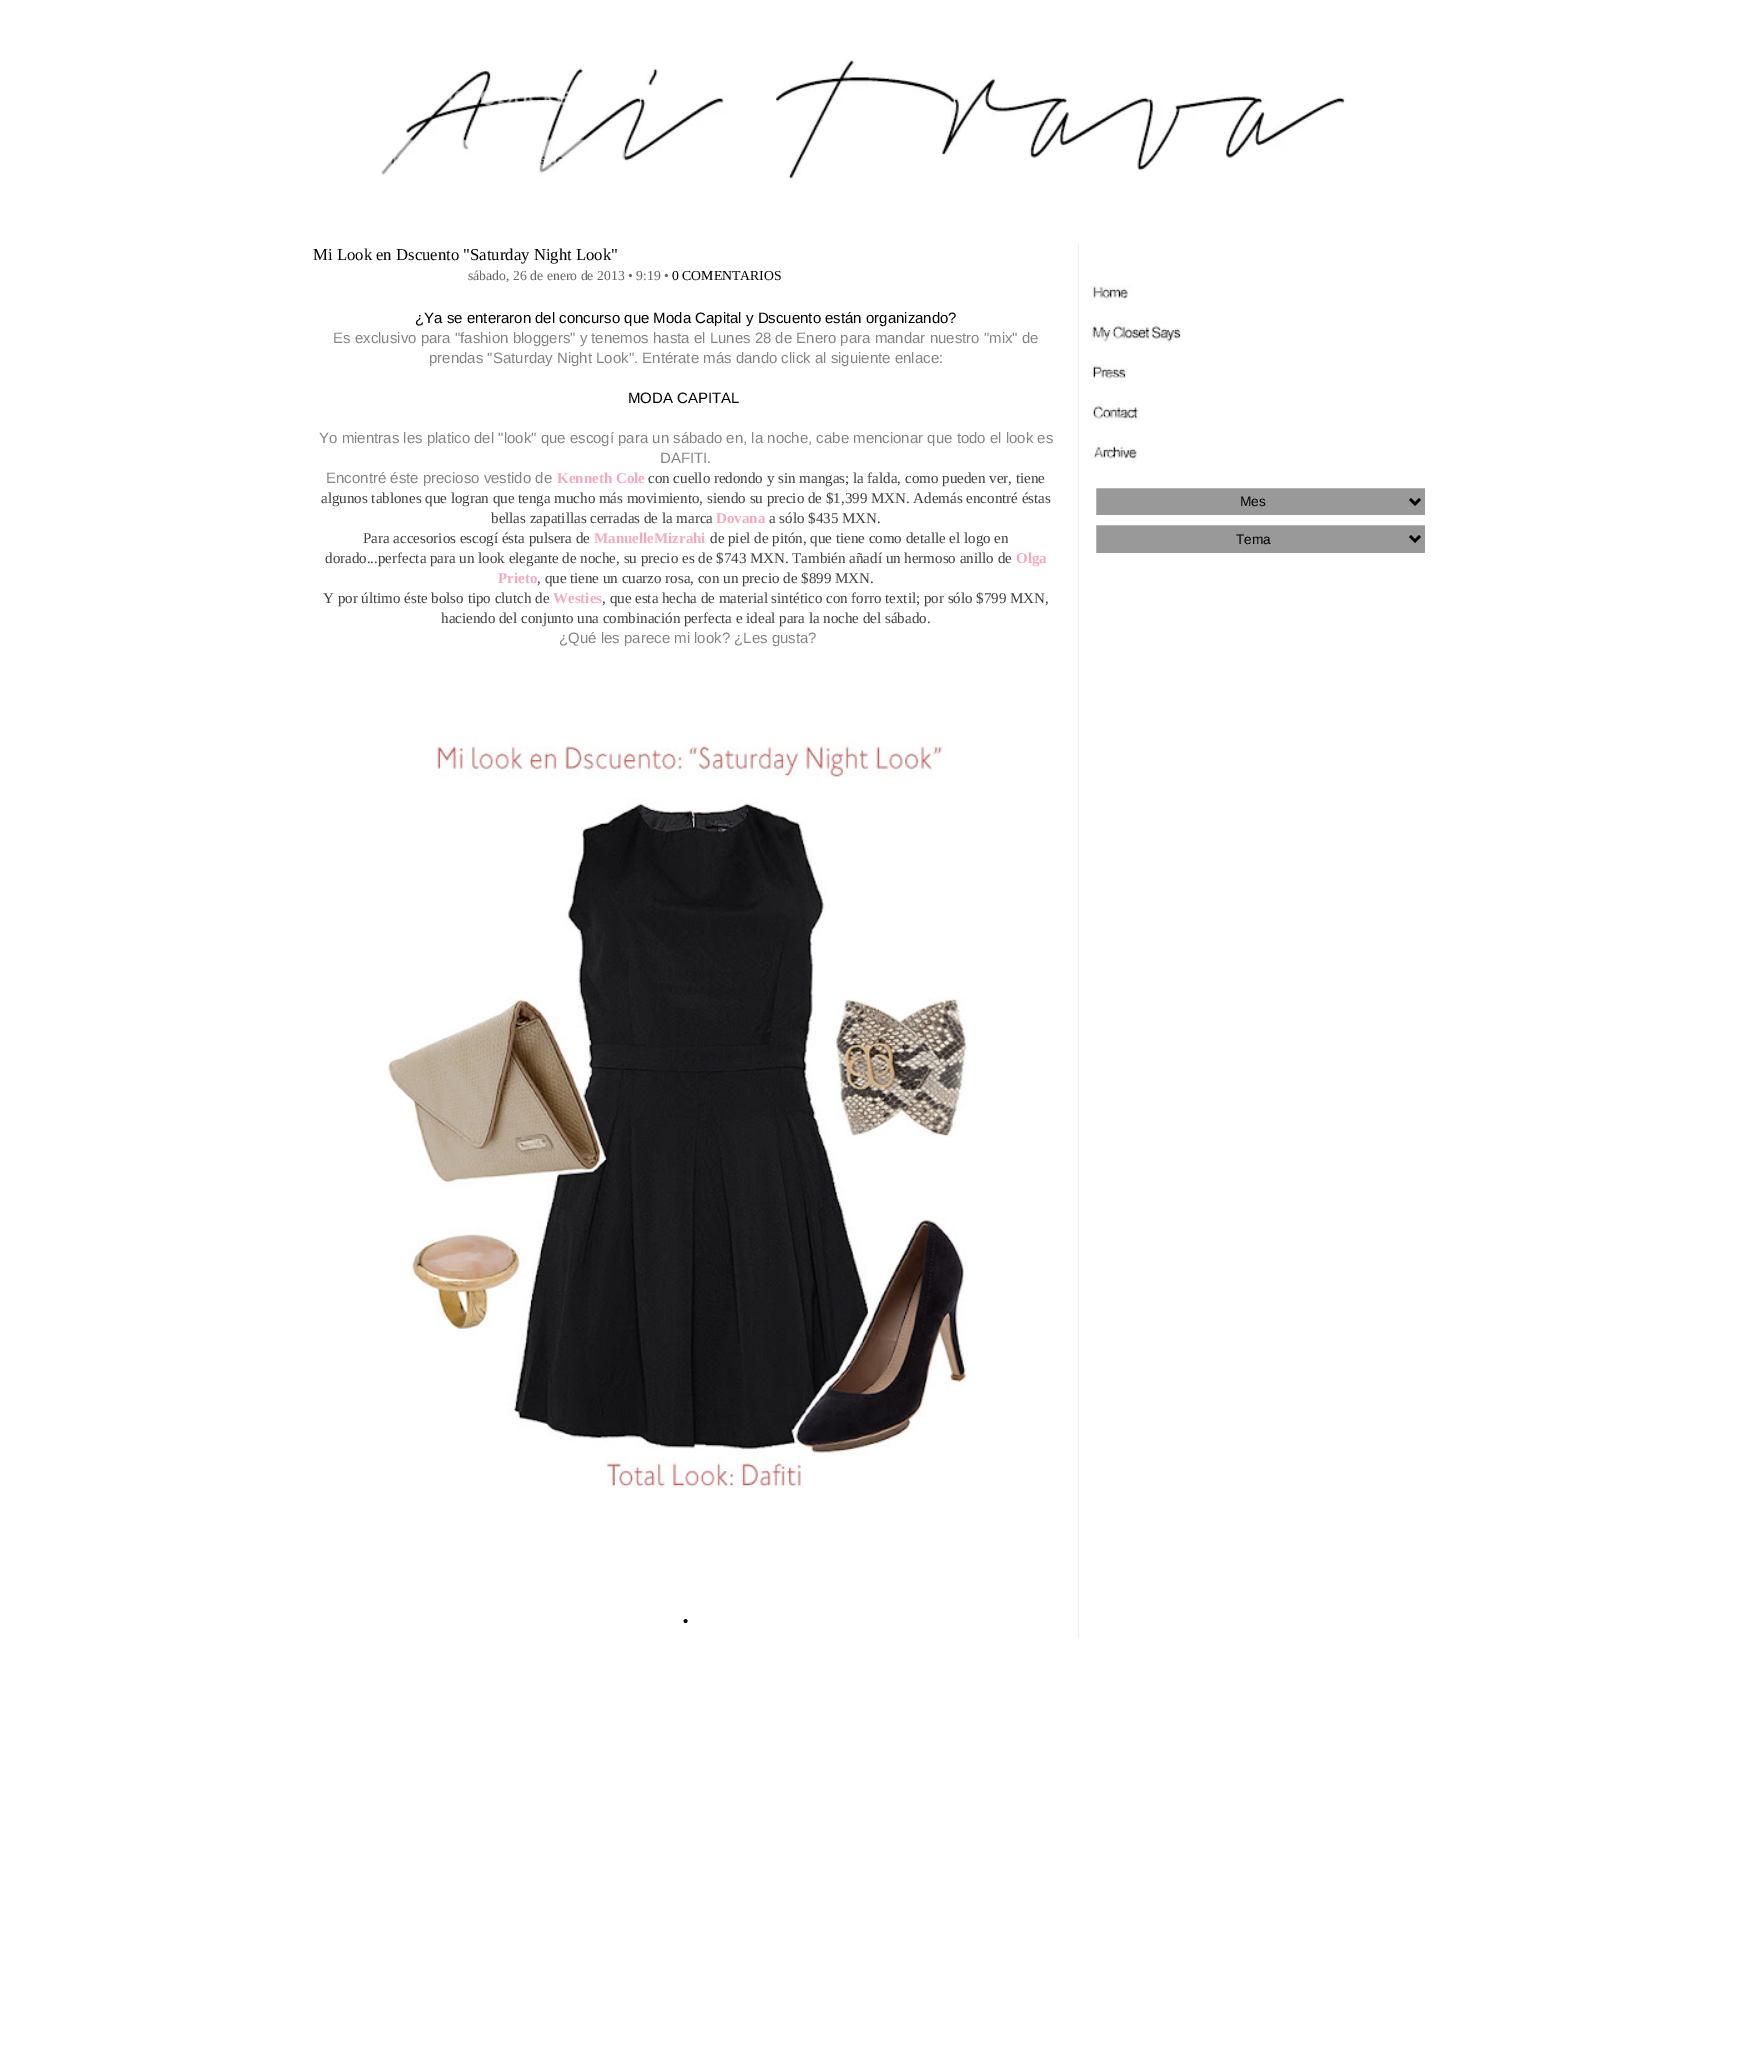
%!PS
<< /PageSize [1737 2068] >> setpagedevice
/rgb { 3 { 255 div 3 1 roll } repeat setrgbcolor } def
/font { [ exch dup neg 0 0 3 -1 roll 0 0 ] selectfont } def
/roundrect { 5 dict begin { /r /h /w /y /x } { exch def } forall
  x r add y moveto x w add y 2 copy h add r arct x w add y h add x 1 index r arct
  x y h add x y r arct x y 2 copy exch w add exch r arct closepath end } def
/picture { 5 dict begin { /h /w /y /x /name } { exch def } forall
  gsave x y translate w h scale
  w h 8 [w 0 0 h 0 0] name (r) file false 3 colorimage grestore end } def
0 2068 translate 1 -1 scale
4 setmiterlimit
255 255 255 rgb
0 0 1737 2068 rectfill
(img/1.rgb) 381 60 965 120 picture
238 238 238 rgb
1078 244 1 1394 rectfill
(img/2.rgb) 387 741 580 747 picture
(img/3.rgb) 1091 282 40 21 picture
(img/4.rgb) 1091 322 90 20 picture
(img/5.rgb) 1091 364 35 18 picture
(img/6.rgb) 1091 402 49 20 picture
(img/7.rgb) 1091 442 46 20 picture
153 153 153 rgb
1093.5 485.5 334 32 2.5 roundrect gsave fill grestore
255 255 255 rgb
5 setlinewidth
stroke
0 0 0 rgb
2.5 setlinewidth
1410 499 moveto 1415 504 lineto 1420 499 lineto stroke
153 153 153 rgb
1093.5 522.5 334 33 2.5 roundrect gsave fill grestore
255 255 255 rgb
5 setlinewidth
stroke
0 0 0 rgb
2.5 setlinewidth
1410 536 moveto 1415 541 lineto 1420 536 lineto stroke
/LiberationSerif-Regular 16.7 font
313 260 moveto (Mi Look en Dscuento "Saturday Night Look") show
/LiberationSerif-Regular 13.75 font
102 102 102 rgb
468 280 moveto (sábado, 26 de enero de 2013 • 9:19 •) show
0 0 0 rgb
672 280 moveto (0 COMENTARIOS) show
/LiberationSans-Regular 15 font
415 323 moveto (¿Ya se enteraron del concurso que Moda Capital y Dscuento están organizando?) show
132 132 132 rgb
333 343 moveto (Es exclusivo para "fashion bloggers" y tenemos hasta el Lunes 28 de Enero para mandar nuestro "mix" de) show
429 363 moveto (prendas "Saturday Night Look". Entérate más dando click al siguiente enlace:) show
0 0 0 rgb
628 403 moveto (MODA CAPITAL) show
132 132 132 rgb
[
  [(Yo mientras les platico del "look" que escogí para un sábado en, la noche, cabe mencionar que todo el look es) 319 443]
  [(DAFITI.) 660 463]
  [(Encontré éste precioso vestido de) 326 483]
] { aload pop moveto show } forall
/LiberationSerif-Bold 15 font
245 169 188 rgb
557 483 moveto (Kenneth Cole) show
/LiberationSerif-Regular 15 font
64 64 64 rgb
[
  [(con cuello redondo y sin mangas; la falda, como pueden ver, tiene) 648 483]
  [(algunos tablones que logran que tenga mucho más movimiento, siendo su precio de $1,399 MXN. Además encontré éstas) 321 503]
  [(bellas zapatillas cerradas de la marca) 491 523]
] { aload pop moveto show } forall
/LiberationSerif-Bold 15 font
245 169 188 rgb
716 523 moveto (Dovana) show
/LiberationSerif-Regular 15 font
64 64 64 rgb
769 523 moveto (a sólo $435 MXN.) show
363 543 moveto (Para accesorios escogí ésta pulsera de) show
/LiberationSerif-Bold 15 font
245 169 188 rgb
594 543 moveto (ManuelleMizrahi) show
/LiberationSerif-Regular 15 font
64 64 64 rgb
710 543 moveto (de piel de pitón, que tiene como detalle el logo en) show
325 563 moveto (dorado...perfecta para un look elegante de noche, su precio es de $743 MXN. También añadí un hermoso anillo de) show
/LiberationSerif-Bold 15 font
245 169 188 rgb
1016 563 moveto (Olga) show
498 583 moveto (Prieto) show
/LiberationSerif-Regular 15 font
64 64 64 rgb
537 583 moveto (, que tiene un cuarzo rosa, con un precio de $899 MXN.) show
323 603 moveto (Y por último éste bolso tipo clutch de) show
/LiberationSerif-Bold 15 font
245 169 188 rgb
553 603 moveto (Westies) show
/LiberationSerif-Regular 15 font
64 64 64 rgb
602 603 moveto (, que esta hecha de material sintético con forro textil; por sólo $799 MXN,) show
441 623 moveto (haciendo del conjunto una combinación perfecta e ideal para la noche del sábado.) show
/LiberationSans-Regular 15 font
132 132 132 rgb
559 643 moveto (¿Qué les parece mi look? ¿Les gusta?) show
0 0 0 rgb
683 1626 moveto (•) show
/LiberationSans-Regular 13.75 font
1240 506 moveto (Mes) show
1236 544 moveto (Tema) show
showpage
